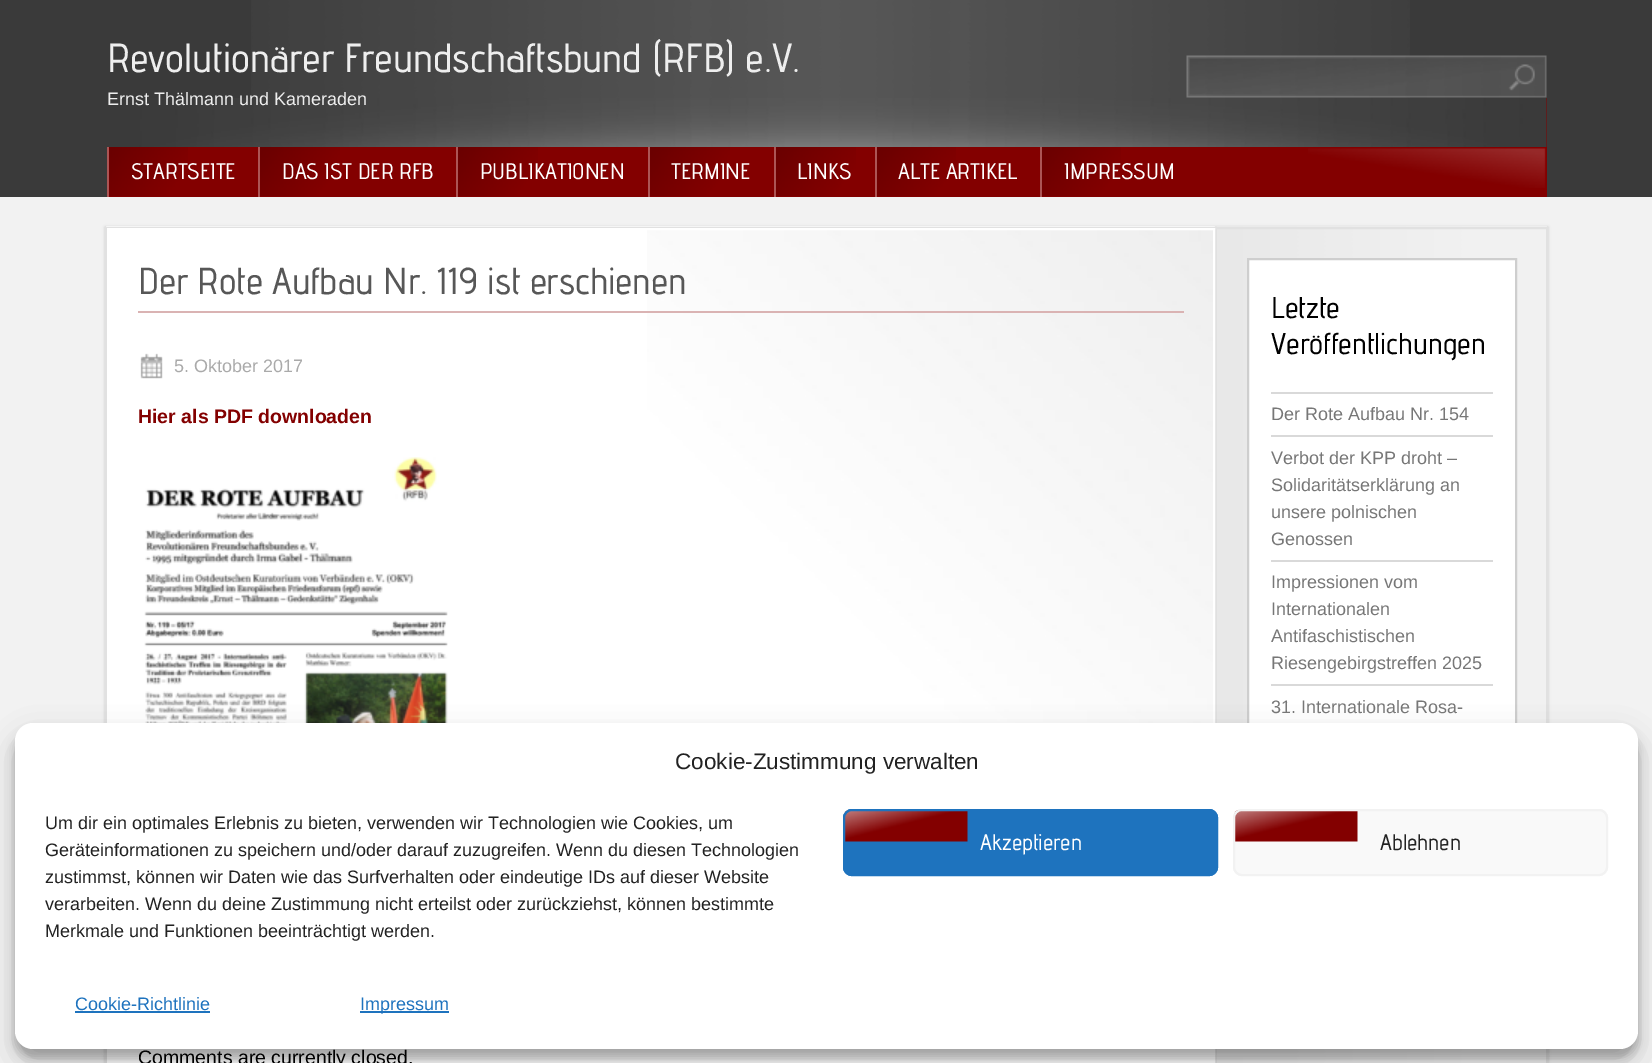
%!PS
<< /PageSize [1652 1063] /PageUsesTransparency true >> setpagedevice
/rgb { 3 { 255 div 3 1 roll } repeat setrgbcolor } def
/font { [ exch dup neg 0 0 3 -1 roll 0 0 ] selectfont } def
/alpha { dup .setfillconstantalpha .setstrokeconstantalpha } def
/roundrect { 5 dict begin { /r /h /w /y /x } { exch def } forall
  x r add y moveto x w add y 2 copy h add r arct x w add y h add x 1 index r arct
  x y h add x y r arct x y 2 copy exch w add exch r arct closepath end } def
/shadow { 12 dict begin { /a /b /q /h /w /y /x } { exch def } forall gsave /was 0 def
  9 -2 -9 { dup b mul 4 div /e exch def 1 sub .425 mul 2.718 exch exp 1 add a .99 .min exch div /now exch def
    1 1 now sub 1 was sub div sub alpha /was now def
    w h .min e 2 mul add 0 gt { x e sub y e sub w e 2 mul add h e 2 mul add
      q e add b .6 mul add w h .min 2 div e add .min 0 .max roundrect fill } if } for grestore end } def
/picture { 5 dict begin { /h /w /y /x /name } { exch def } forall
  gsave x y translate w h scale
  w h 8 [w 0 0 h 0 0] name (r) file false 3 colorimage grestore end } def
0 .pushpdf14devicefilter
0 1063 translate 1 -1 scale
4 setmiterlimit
242 242 242 rgb
0 0 1652 1063 rectfill
58 58 58 rgb
0 0 1652 197 rectfill
(img/1.rgb) 251 0 1159 98 picture
(img/2.rgb) 1186 55 361 43 picture
131 0 0 rgb
109 98 1438 99 rectfill
(img/3.rgb) 107 98 1440 49 picture
(img/4.rgb) 1308 148 238 40 picture
(img/5.rgb) 109 147 79 49 picture
172 85 85 rgb
107 147 2 50 rectfill
(img/6.rgb) 260 147 80 49 picture
258 147 2 50 rectfill
(img/6.rgb) 458 147 80 49 picture
456 147 2 50 rectfill
(img/7.rgb) 650 147 80 49 picture
648 147 2 50 rectfill
(img/8.rgb) 776 147 80 49 picture
774 147 2 50 rectfill
(img/5.rgb) 877 147 79 49 picture
875 147 2 50 rectfill
(img/9.rgb) 1042 147 79 49 picture
1040 147 2 50 rectfill
0 0 0 rgb
105 227 1443 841 0 1.5 0.15 shadow
(img/10.rgb) 106 226 1441 837 picture
225 225 225 rgb
2 setlinewidth
106 228 1441 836 rectstroke
(img/11.rgb) 647 230 566 493 picture
255 255 255 rgb
108 229 1106 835 rectstroke
218 179 179 rgb
138 311 1046 2 rectfill
(img/12.rgb) 140 353 23 26 picture
(img/13.rgb) 144 457 304 266 picture
255 255 255 rgb
1249 260 266 463 rectfill
206 206 206 rgb
1248 259 268 643 rectstroke
[
  [1271 392 222 2 217 217 217]
  [1271 435 222 2 217 217 217]
  [1271 560 222 2 217 217 217]
  [1271 684 222 2 217 217 217]
] { aload pop rgb rectfill } forall
0 0 0 rgb
15 732 1623 326 18 4.5 0.23 shadow
15 738 1623 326 18 15 0.19 shadow
255 255 255 rgb
15 723 1623 326 18 roundrect fill
30 115 190 rgb
843 809 375 67 9 roundrect fill
(img/14.rgb) 844 810 124 32 picture
844 810 373 65 8 roundrect stroke
249 249 249 rgb
1233 809 375 67 9 roundrect fill
(img/15.rgb) 1234 810 124 32 picture
242 242 242 rgb
1234 810 373 65 8 roundrect stroke
30 115 190 rgb
75 1011 135 2 rectfill
360 1011 89 2 rectfill
/adventpro-Regular 40.6 font
238 238 238 rgb
107 72 moveto (Revolutionärer Freundschaftsbund \(RFB\) e.V.) show
/LiberationSans-Regular 18 font
107 105 moveto (Ernst Thälmann und Kameraden) show
/adventpro-Regular 22.5 font
255 255 255 rgb
[
  [(STARTSEITE) 131 179]
  [(DAS IST DER RFB) 282 179]
  [(PUBLIKATIONEN) 480 179]
  [(TERMINE) 671 179]
  [(LINKS) 797 179]
  [(ALTE ARTIKEL) 898 179]
  [(IMPRESSUM) 1064 179]
] { aload pop moveto show } forall
/adventpro-Regular 37.5 font
87 87 87 rgb
138 294 moveto (Der Rote Aufbau Nr. 119 ist erschienen) show
/LiberationSans-Regular 18 font
170 170 170 rgb
174 372 moveto (5. Oktober 2017) show
/LiberationSans-Bold 19.5 font
131 0 0 rgb
138 423 moveto (Hier als PDF downloaden) show
/LiberationSans-Regular 19.5 font
0 0 0 rgb
138 1064 moveto (Comments are currently closed.) show
/adventpro-Regular 30 font
1271 318 moveto (Letzte) show
1271 354 moveto (Veröffentlichungen) show
/LiberationSans-Regular 18 font
119 119 119 rgb
[
  [(Der Rote Aufbau Nr. 154) 1271 420]
  [(Verbot der KPP droht –) 1271 464]
  [(Solidaritätserklärung an) 1271 491]
  [(unsere polnischen) 1271 518]
  [(Genossen) 1271 545]
  [(Impressionen vom) 1271 588]
  [(Internationalen) 1271 615]
  [(Antifaschistischen) 1271 642]
  [(Riesengebirgstreffen 2025) 1271 669]
  [(31. Internationale Rosa-) 1271 713]
] { aload pop moveto show } forall
/LiberationSans-Regular 22.5 font
34 34 34 rgb
675 769 moveto (Cookie-Zustimmung verwalten) show
/LiberationSans-Regular 18 font
[
  [(Um dir ein optimales Erlebnis zu bieten, verwenden wir Technologien wie Cookies, um) 45 829]
  [(Geräteinformationen zu speichern und/oder darauf zuzugreifen. Wenn du diesen Technologien) 45 856]
  [(zustimmst, können wir Daten wie das Surfverhalten oder eindeutige IDs auf dieser Website) 45 883]
  [(verarbeiten. Wenn du deine Zustimmung nicht erteilst oder zurückziehst, können bestimmte) 45 910]
  [(Merkmale und Funktionen beeinträchtigt werden.) 45 937]
] { aload pop moveto show } forall
/adventpro-Regular 22.5 font
255 255 255 rgb
980 850 moveto (Akzeptieren) show
34 34 34 rgb
1380 850 moveto (Ablehnen) show
/LiberationSans-Regular 18 font
30 115 190 rgb
75 1010 moveto (Cookie-Richtlinie) show
360 1010 moveto (Impressum) show
.poppdf14devicefilter showpage
